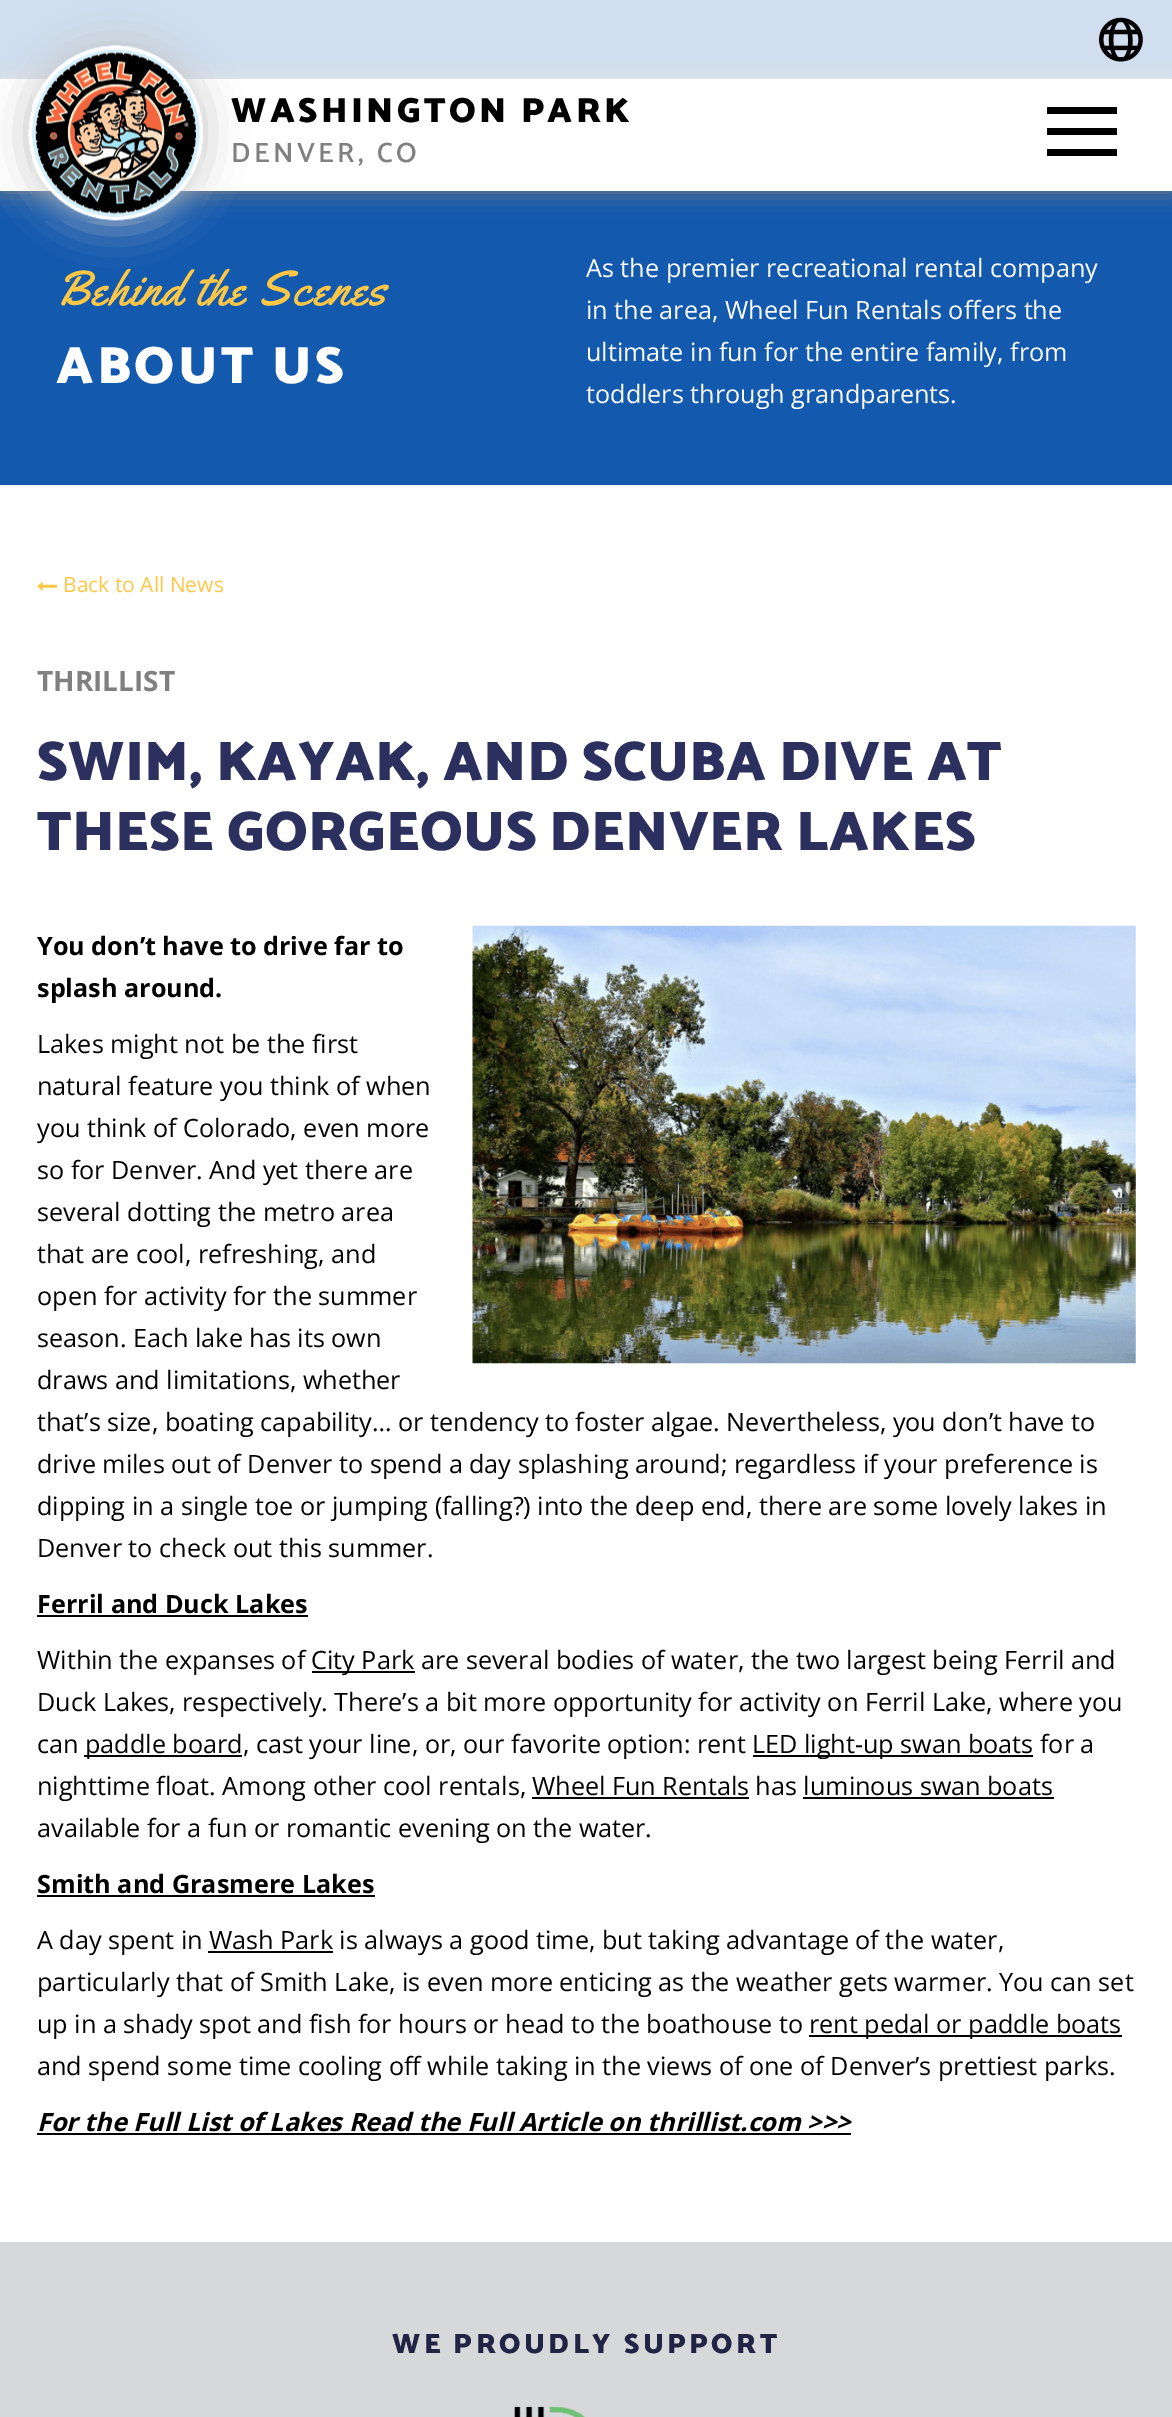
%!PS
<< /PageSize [1172 2417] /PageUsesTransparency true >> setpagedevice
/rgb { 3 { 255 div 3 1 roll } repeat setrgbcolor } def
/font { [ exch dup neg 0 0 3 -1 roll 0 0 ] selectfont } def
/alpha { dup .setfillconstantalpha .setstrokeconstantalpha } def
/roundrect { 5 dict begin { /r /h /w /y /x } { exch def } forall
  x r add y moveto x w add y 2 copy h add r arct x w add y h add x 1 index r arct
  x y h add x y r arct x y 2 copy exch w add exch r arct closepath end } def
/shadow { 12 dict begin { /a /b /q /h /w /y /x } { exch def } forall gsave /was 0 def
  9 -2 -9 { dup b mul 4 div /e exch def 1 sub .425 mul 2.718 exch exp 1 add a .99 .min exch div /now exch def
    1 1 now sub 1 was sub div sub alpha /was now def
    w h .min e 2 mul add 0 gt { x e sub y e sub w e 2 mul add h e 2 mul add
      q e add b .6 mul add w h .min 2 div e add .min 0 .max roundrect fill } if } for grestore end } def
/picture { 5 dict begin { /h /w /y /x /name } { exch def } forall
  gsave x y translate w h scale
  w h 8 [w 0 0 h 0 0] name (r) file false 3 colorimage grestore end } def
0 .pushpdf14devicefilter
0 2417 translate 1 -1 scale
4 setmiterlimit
255 255 255 rgb
0 0 1172 2417 rectfill
19 89 174 rgb
0 0 1172 485 rectfill
128 128 128 rgb
0 79 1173 112 0 12 1 shadow
255 255 255 rgb
0 79 1172 112 rectfill
0.8 alpha
0 0 1172 79 rectfill
1 alpha
(img/1.rgb) 1099 17 44 45 picture
gsave
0 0 moveto 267 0 lineto 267 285 lineto 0 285 lineto closepath 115.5 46 moveto 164 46 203 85 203 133.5 curveto 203 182 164 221 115.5 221 curveto 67 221 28 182 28 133.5 curveto 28 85 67 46 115.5 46 curveto closepath eoclip newpath
193 193 193 rgb
28 46 175 175 87.5 21 1 shadow
grestore
(img/2.rgb) 32 45 171 176 picture
[
  [1047 107 70 7 0 0 0]
  [1047 128 70 7 0 0 0]
  [1047 149 70 7 0 0 0]
] { aload pop rgb rectfill } forall
(img/3.rgb) 37 582 21 9 picture
(img/4.rgb) 472 925 664 439 picture
[
  [37 1615 271 2 0 0 0]
  [312 1671 103 2 0 0 0]
  [84 1755 158 2 0 0 0]
  [753 1755 280 2 0 0 0]
  [532 1797 217 2 0 0 0]
  [803 1797 251 2 0 0 0]
  [37 1895 338 2 0 0 0]
  [208 1951 125 2 0 0 0]
  [809 2035 313 2 0 0 0]
  [37 2133 814 2 0 0 0]
  [0 2242 1172 175 215 216 218]
] { aload pop rgb rectfill } forall
(img/5.rgb) 514 2406 71 11 picture
/Catamaran-Black 35 font
0 0 0 rgb
231 122 moveto 3.5 0 (WASHINGTON PARK) ashow
/Catamaran-SemiBold 28 font
128 128 128 rgb
231 162 moveto 3.5 0 (DENVER, CO) ashow
/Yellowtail-Regular 49 font
254 199 69 rgb
56 305 moveto 1.75 0 (Behind the Scenes) ashow
/Catamaran-Black 52.5 font
255 255 255 rgb
56 383 moveto 3.5 0 (ABOUT US) ashow
/OpenSans-Regular 25.2 font
[
  [(As the premier recreational rental company) 586 277]
  [(in the area, Wheel Fun Rentals offers the) 586 319]
  [(ultimate in fun for the entire family, from) 586 361]
  [(toddlers through grandparents.) 586 403]
] { aload pop moveto show } forall
/OpenSans-Regular 21 font
254 199 69 rgb
63 592 moveto (Back to All News) show
/OpenSans-Bold 28 font
128 128 128 rgb
37 691 moveto (THRILLIST) show
/Catamaran-Black 56 font
44 48 94 rgb
37 780 moveto 0.45 0 (SWIM, KAYAK, AND SCUBA DIVE AT) ashow
37 850 moveto 0.45 0 (THESE GORGEOUS DENVER LAKES) ashow
/OpenSans-Bold 25.2 font
0 0 0 rgb
37 955 moveto (You don’t have to drive far to) show
37 997 moveto (splash around.) show
/OpenSans-Regular 25.2 font
[
  [(Lakes might not be the first) 37 1053]
  [(natural feature you think of when) 37 1095]
  [(you think of Colorado, even more) 37 1137]
  [(so for Denver. And yet there are) 37 1179]
  [(several dotting the metro area) 37 1221]
  [(that are cool, refreshing, and) 37 1263]
  [(open for activity for the summer) 37 1305]
  [(season. Each lake has its own) 37 1347]
  [(draws and limitations, whether) 37 1389]
  [(that’s size, boating capability… or tendency to foster algae. Nevertheless, you don’t have to) 37 1431]
  [(drive miles out of Denver to spend a day splashing around; regardless if your preference is) 37 1473]
  [(dipping in a single toe or jumping \(falling?\) into the deep end, there are some lovely lakes in) 37 1515]
  [(Denver to check out this summer.) 37 1557]
] { aload pop moveto show } forall
/OpenSans-Bold 25.2 font
37 1613 moveto (Ferril and Duck Lakes) show
/OpenSans-Regular 25.2 font
[
  [(Within the expanses of) 37 1669]
  [(City Park are several bodies of water, the two largest being Ferril and) 311 1669]
  [(Duck Lakes, respectively. There’s a bit more opportunity for activity on Ferril Lake, where you) 37 1711]
  [(can) 37 1753]
  [(paddle board, cast your line, or, our favorite option: rent) 85 1753]
  [(LED light-up swan boats for a) 752 1753]
  [(nighttime float. Among other cool rentals,) 37 1795]
  [(Wheel Fun Rentals has luminous swan boats) 532 1795]
  [(available for a fun or romantic evening on the water.) 37 1837]
] { aload pop moveto show } forall
/OpenSans-Bold 25.2 font
37 1893 moveto (Smith and Grasmere Lakes) show
/OpenSans-Regular 25.2 font
[
  [(A day spent in Wash Park is always a good time, but taking advantage of the water,) 37 1949]
  [(particularly that of Smith Lake, is even more enticing as the weather gets warmer. You can set) 37 1991]
  [(up in a shady spot and fish for hours or head to the boathouse to) 37 2033]
  [(rent pedal or paddle boats) 809 2033]
  [(and spend some time cooling off while taking in the views of one of Denver’s prettiest parks.) 37 2075]
] { aload pop moveto show } forall
/OpenSans-BoldItalic 25.2 font
37 2131 moveto (For the Full List of Lakes Read the Full Article on thrillist.com >>>) show
/Catamaran-Black 28 font
33 36 69 rgb
392 2353 moveto 3.5 0 (WE PROUDLY SUPPORT) ashow
.poppdf14devicefilter showpage
